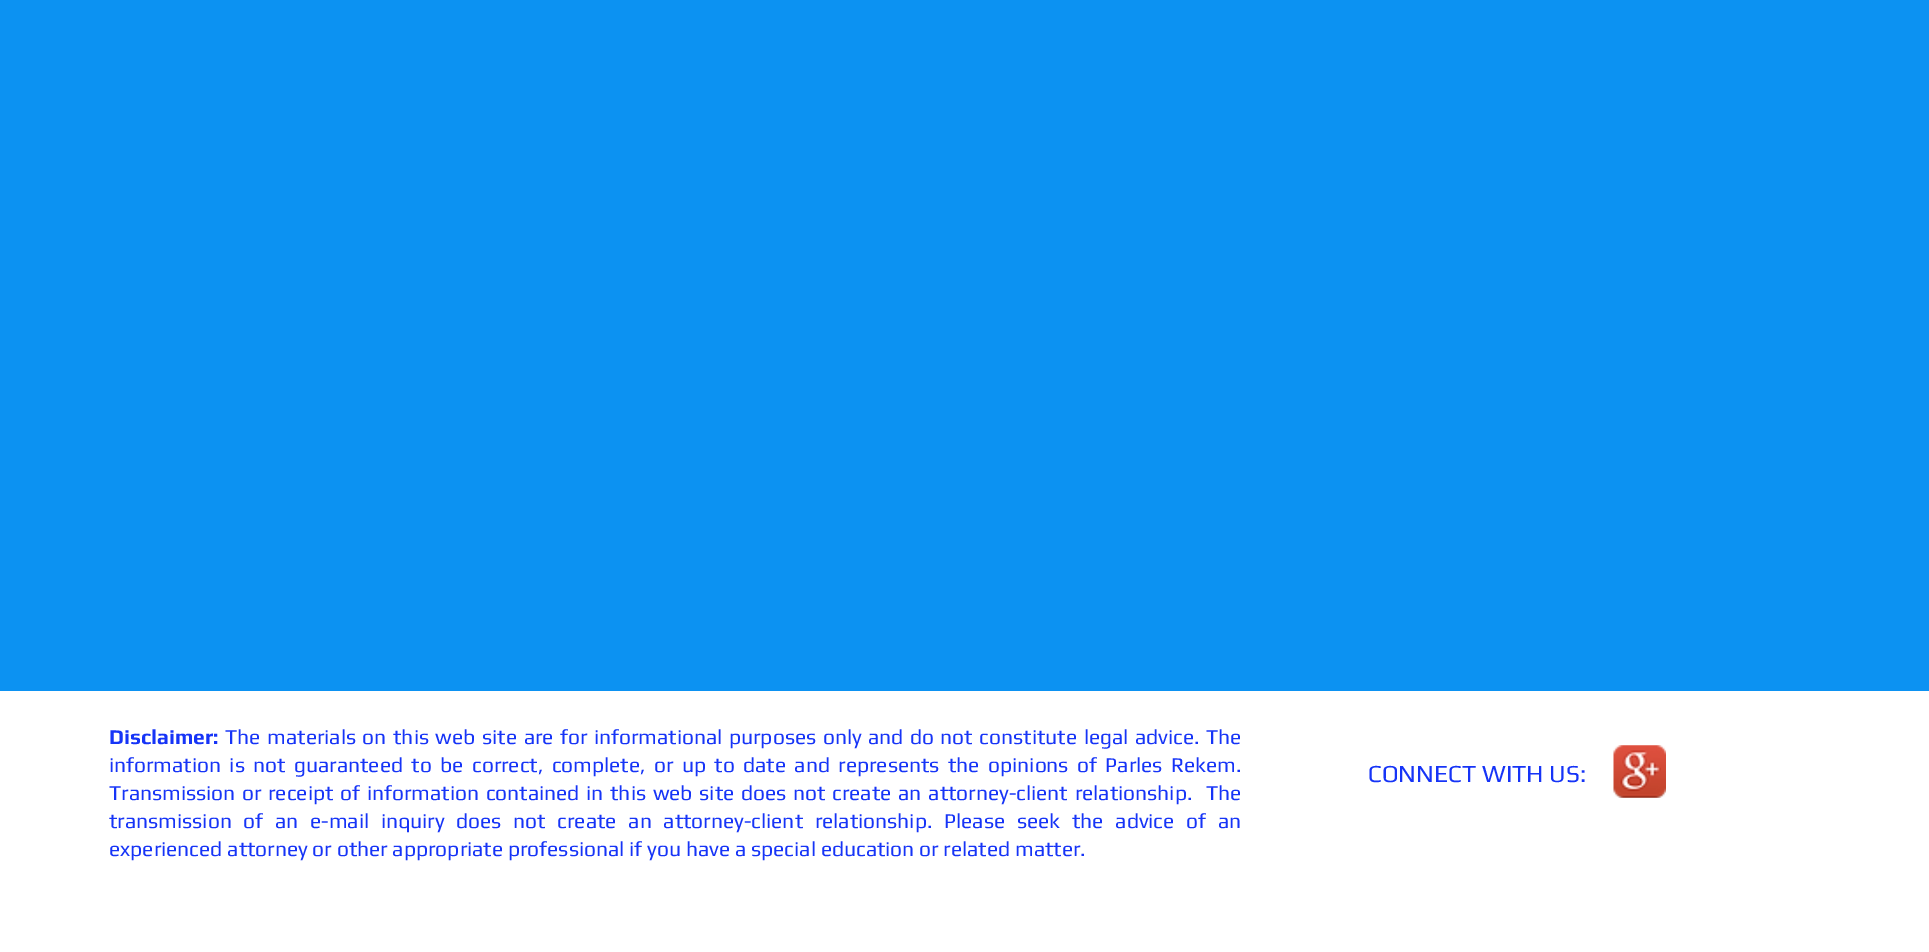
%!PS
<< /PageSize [1929 952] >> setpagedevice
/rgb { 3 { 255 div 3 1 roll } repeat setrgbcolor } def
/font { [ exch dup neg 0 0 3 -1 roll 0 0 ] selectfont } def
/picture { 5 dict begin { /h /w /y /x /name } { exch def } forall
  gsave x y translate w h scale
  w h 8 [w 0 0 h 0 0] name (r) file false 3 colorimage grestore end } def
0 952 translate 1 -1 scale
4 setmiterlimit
12 146 242 rgb
0 0 1929 952 rectfill
255 255 255 rgb
0 691 1929 261 rectfill
(img/1.rgb) 1613 745 53 53 picture
/Play-Bold 21 font
22 52 247 rgb
109 744 moveto (Disclaimer:) show
/Play-Regular 21 font
225 744 moveto 1.75 0 32 (The materials on this web site are for informational purposes only and do not constitute legal advice. The) widthshow
109 772 moveto 3.6 0 32 (information is not guaranteed to be correct, complete, or up to date and represents the opinions of Parles Rekem.) widthshow
109 800 moveto 1.9 0 32 (Transmission or receipt of information contained in this web site does not create an attorney-client relationship.  The) widthshow
109 828 moveto 6.9 0 32 (transmission of an e-mail inquiry does not create an attorney-client relationship. Please seek the advice of an) widthshow
109 856 moveto (experienced attorney or other appropriate professional if you have a special education or related matter.) show
/Play-Regular 24.5 font
1368 782 moveto (CONNECT WITH US:) show
showpage
